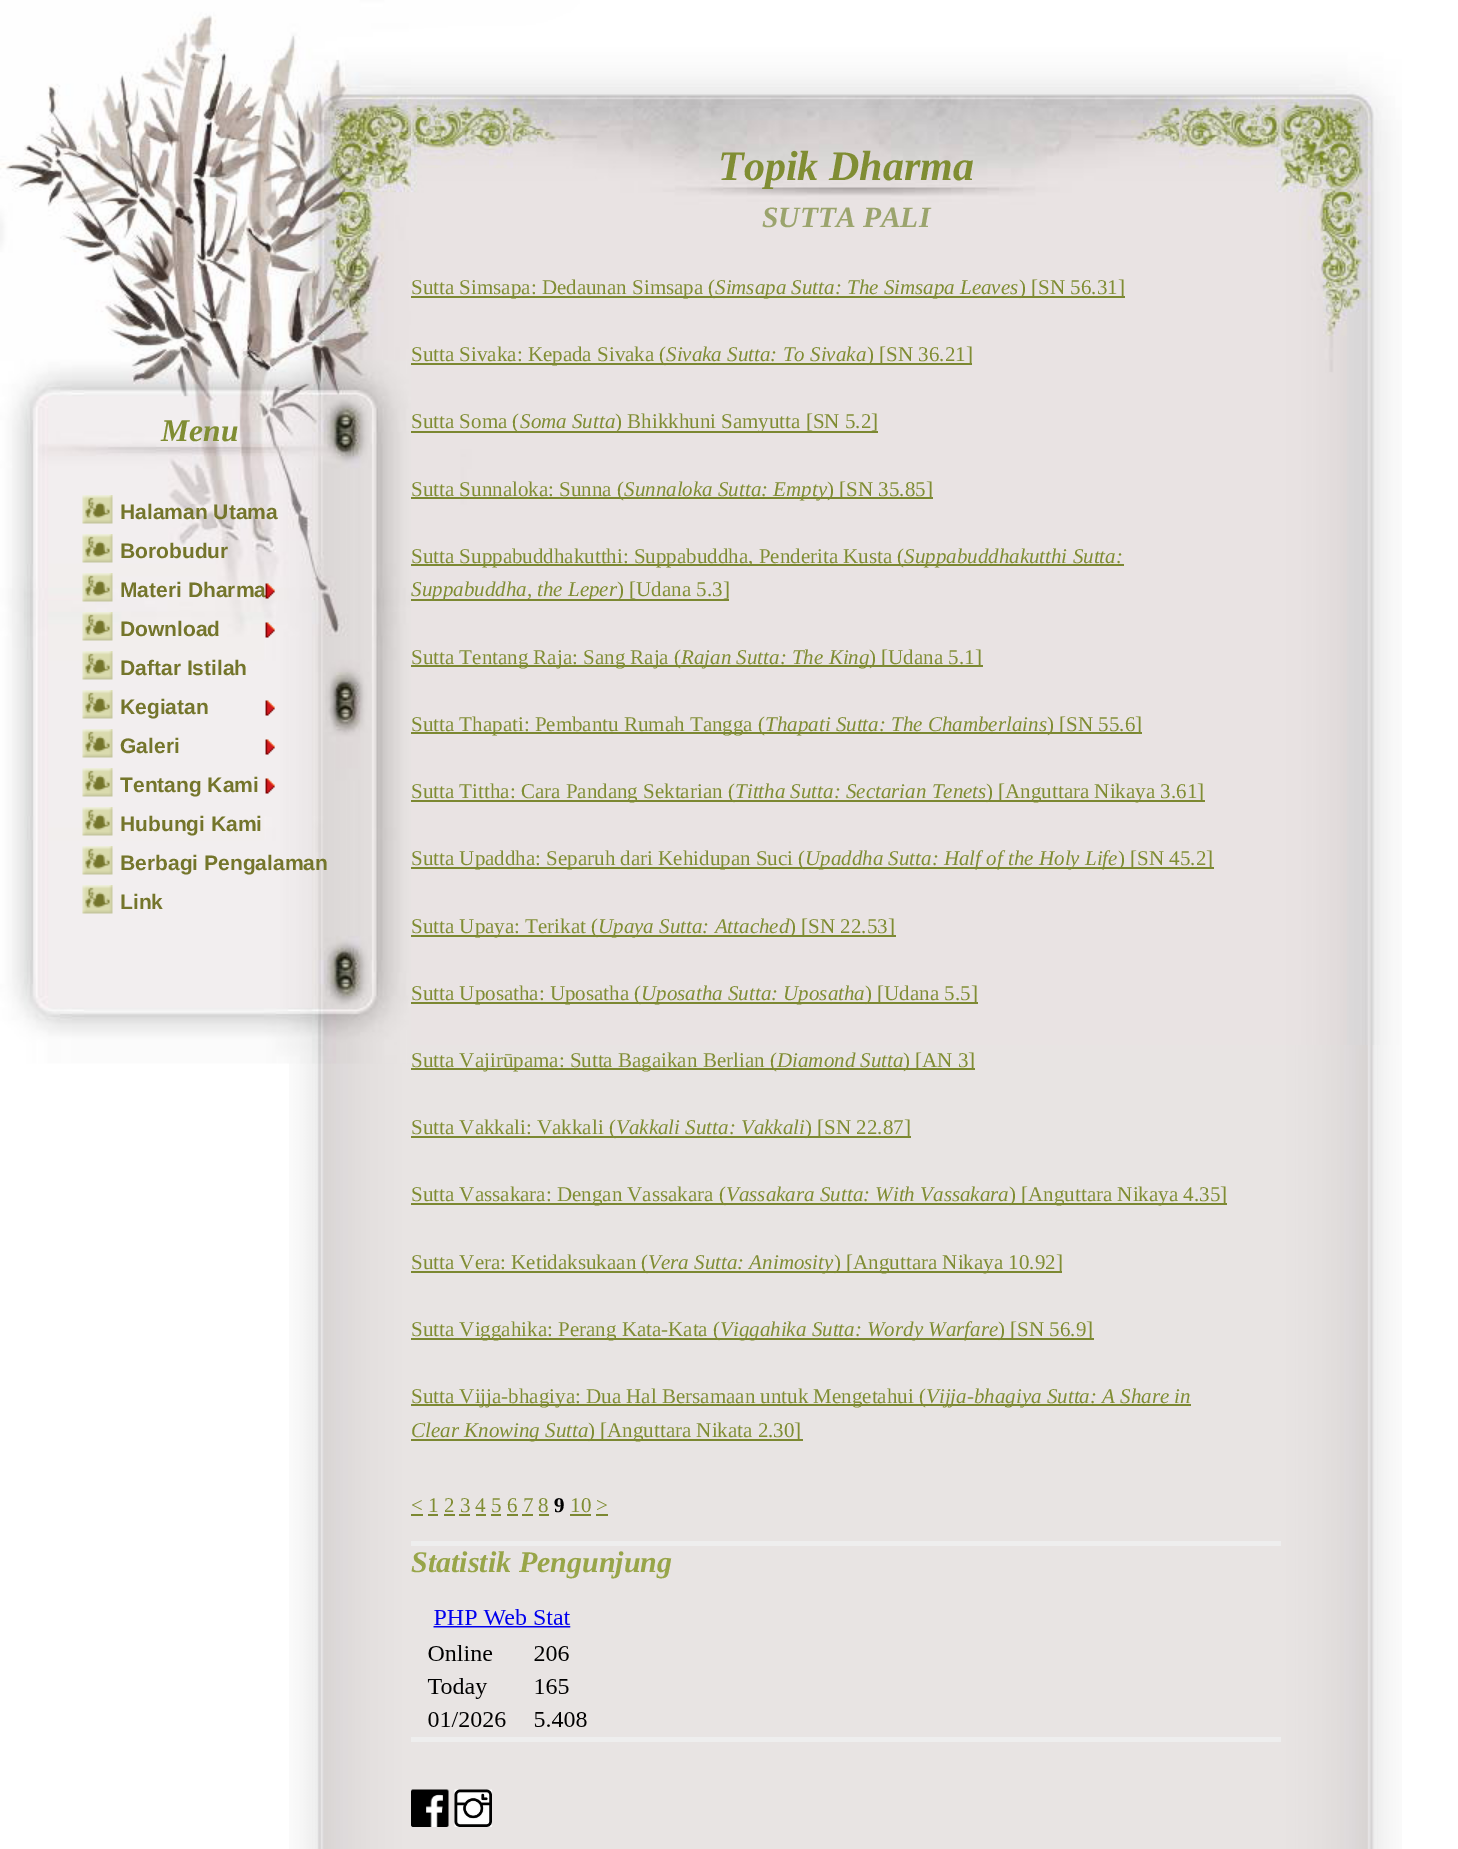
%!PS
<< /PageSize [1458 1849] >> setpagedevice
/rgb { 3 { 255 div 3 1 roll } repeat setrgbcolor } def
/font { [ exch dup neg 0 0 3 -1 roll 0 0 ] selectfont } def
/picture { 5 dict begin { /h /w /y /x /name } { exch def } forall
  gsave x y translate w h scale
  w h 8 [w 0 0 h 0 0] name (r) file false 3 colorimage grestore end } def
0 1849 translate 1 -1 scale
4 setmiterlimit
255 255 255 rgb
0 0 1458 1849 rectfill
(img/1.rgb) 289 1045 1113 804 picture
(img/2.rgb) 0 0 411 1064 picture
(img/3.rgb) 82 495 31 29 picture
(img/3.rgb) 82 534 31 29 picture
(img/4.rgb) 82 573 31 29 picture
(img/6.rgb) 82 612 31 29 picture
(img/7.rgb) 265 622 10 16 picture
(img/8.rgb) 82 651 31 29 picture
(img/3.rgb) 82 690 31 29 picture
(img/9.rgb) 265 700 10 16 picture
(img/3.rgb) 82 729 31 29 picture
(img/9.rgb) 265 739 10 16 picture
(img/3.rgb) 82 768 31 29 picture
(img/9.rgb) 265 778 10 16 picture
(img/10.rgb) 82 807 31 29 picture
(img/3.rgb) 82 846 31 29 picture
(img/3.rgb) 82 885 31 29 picture
(img/11.rgb) 411 0 991 1045 picture
[
  [411 296 714 2 124 136 50]
  [411 363 561 2 124 136 50]
  [411 431 467 2 124 136 50]
  [411 497 522 2 124 136 50]
  [411 564 713 2 124 136 50]
  [411 599 318 2 124 136 50]
  [411 665 572 2 124 136 50]
  [411 732 731 2 124 136 50]
  [411 800 794 2 124 136 50]
  [411 867 803 2 124 136 50]
  [411 935 378 2 124 136 50]
  [411 1002 567 2 124 136 50]
  [411 1068 564 2 124 136 50]
  [411 1136 204 2 124 136 50]
  [411 1203 816 2 124 136 50]
  [411 1271 651 2 124 136 50]
  [411 1338 683 2 124 136 50]
  [411 1404 780 2 124 136 50]
  [411 1439 392 2 124 136 50]
  [411 1514 12 2 124 136 50]
  [570 1514 21 2 124 136 50]
  [428 1514 10 2 124 136 50]
  [444 1514 11 2 124 136 50]
  [459 1514 11 2 124 136 50]
  [476 1514 10 2 124 136 50]
  [491 1514 10 2 124 136 50]
  [507 1514 11 2 124 136 50]
  [522 1514 11 2 124 136 50]
  [539 1514 10 2 124 136 50]
  [596 1514 12 2 124 136 50]
  [411 1541 870 5 238 238 238]
  [411 1737 870 5 238 238 238]
] { aload pop rgb rectfill } forall
(img/12.rgb) 427 1609 160 118 picture
(img/13.rgb) 411 1789 38 38 picture
(img/14.rgb) 454 1789 38 38 picture
/LiberationSerif-BoldItalic 31.5 font
128 141 51 rgb
161 441 moveto (Menu) show
/LiberationSans-Bold 21 font
116 117 43 rgb
[
  [(Halaman Utama) 120 519]
  [(Borobudur) 120 558]
  [(Materi Dharma) 120 597]
] { aload pop moveto show } forall
(img/5.rgb) 265 583 10 16 picture
[
  [(Download) 120 636]
  [(Daftar Istilah) 120 675]
  [(Kegiatan) 120 714]
  [(Galeri) 120 753]
  [(Tentang Kami) 120 792]
  [(Hubungi Kami) 120 831]
  [(Berbagi Pengalaman) 120 870]
  [(Link) 120 909]
] { aload pop moveto show } forall
/LiberationSerif-BoldItalic 42 font
128 141 51 rgb
718 180 moveto (Topik Dharma) show
/LiberationSerif-BoldItalic 29.5 font
155 164 109 rgb
762 227 moveto (SUTTA PALI) show
/LiberationSerif-Regular 21 font
128 141 51 rgb
411 294 moveto (Sutta Simsapa: Dedaunan Simsapa \() show
/LiberationSerif-Italic 21 font
715 294 moveto (Simsapa Sutta: The Simsapa Leaves) show
/LiberationSerif-Regular 21 font
1019 294 moveto (\) [SN 56.31]) show
411 361 moveto (Sutta Sivaka: Kepada Sivaka \() show
/LiberationSerif-Italic 21 font
666 361 moveto (Sivaka Sutta: To Sivaka) show
/LiberationSerif-Regular 21 font
867 361 moveto (\) [SN 36.21]) show
411 428 moveto (Sutta Soma \() show
/LiberationSerif-Italic 21 font
520 428 moveto (Soma Sutta) show
/LiberationSerif-Regular 21 font
615 428 moveto (\) Bhikkhuni Samyutta [SN 5.2]) show
411 496 moveto (Sutta Sunnaloka: Sunna \() show
/LiberationSerif-Italic 21 font
624 496 moveto (Sunnaloka Sutta: Empty) show
/LiberationSerif-Regular 21 font
827 496 moveto (\) [SN 35.85]) show
411 563 moveto (Sutta Suppabuddhakutthi: Suppabuddha, Penderita Kusta \() show
/LiberationSerif-Italic 21 font
904 563 moveto (Suppabuddhakutthi Sutta:) show
411 596 moveto (Suppabuddha, the Leper) show
/LiberationSerif-Regular 21 font
617 596 moveto (\) [Udana 5.3]) show
411 664 moveto (Sutta Tentang Raja: Sang Raja \() show
/LiberationSerif-Italic 21 font
681 664 moveto (Rajan Sutta: The King) show
/LiberationSerif-Regular 21 font
869 664 moveto (\) [Udana 5.1]) show
411 731 moveto (Sutta Thapati: Pembantu Rumah Tangga \() show
/LiberationSerif-Italic 21 font
765 731 moveto (Thapati Sutta: The Chamberlains) show
/LiberationSerif-Regular 21 font
1047 731 moveto (\) [SN 55.6]) show
411 798 moveto (Sutta Tittha: Cara Pandang Sektarian \() show
/LiberationSerif-Italic 21 font
735 798 moveto (Tittha Sutta: Sectarian Tenets) show
/LiberationSerif-Regular 21 font
986 798 moveto (\) [Anguttara Nikaya 3.61]) show
411 865 moveto (Sutta Upaddha: Separuh dari Kehidupan Suci \() show
/LiberationSerif-Italic 21 font
805 865 moveto (Upaddha Sutta: Half of the Holy Life) show
/LiberationSerif-Regular 21 font
1118 865 moveto (\) [SN 45.2]) show
411 933 moveto (Sutta Upaya: Terikat \() show
/LiberationSerif-Italic 21 font
598 933 moveto (Upaya Sutta: Attached) show
124 136 50 rgb
789 935 107 2 rectfill
/LiberationSerif-Regular 21 font
128 141 51 rgb
789 933 moveto (\) [SN 22.53]) show
411 1000 moveto (Sutta Uposatha: Uposatha \() show
/LiberationSerif-Italic 21 font
641 1000 moveto (Uposatha Sutta: Uposatha) show
/LiberationSerif-Regular 21 font
865 1000 moveto (\) [Udana 5.5]) show
411 1067 moveto (Sutta Vajirūpama: Sutta Bagaikan Berlian \() show
/LiberationSerif-Italic 21 font
777 1067 moveto (Diamond Sutta) show
/LiberationSerif-Regular 21 font
903 1067 moveto (\) [AN 3]) show
411 1134 moveto (Sutta Vakkali: Vakkali \() show
124 136 50 rgb
615 1136 296 2 rectfill
/LiberationSerif-Italic 21 font
128 141 51 rgb
616 1134 moveto (Vakkali Sutta: Vakkali) show
/LiberationSerif-Regular 21 font
805 1134 moveto (\) [SN 22.87]) show
411 1201 moveto (Sutta Vassakara: Dengan Vassakara \() show
/LiberationSerif-Italic 21 font
726 1201 moveto (Vassakara Sutta: With Vassakara) show
/LiberationSerif-Regular 21 font
1009 1201 moveto (\) [Anguttara Nikaya 4.35]) show
411 1269 moveto (Sutta Vera: Ketidaksukaan \() show
/LiberationSerif-Italic 21 font
648 1269 moveto (Vera Sutta: Animosity) show
/LiberationSerif-Regular 21 font
834 1269 moveto (\) [Anguttara Nikaya 10.92]) show
411 1336 moveto (Sutta Viggahika: Perang Kata-Kata \() show
/LiberationSerif-Italic 21 font
720 1336 moveto (Viggahika Sutta: Wordy Warfare) show
/LiberationSerif-Regular 21 font
998 1336 moveto (\) [SN 56.9]) show
411 1403 moveto (Sutta Vijja-bhagiya: Dua Hal Bersamaan untuk Mengetahui \() show
/LiberationSerif-Italic 21 font
926 1403 moveto (Vijja-bhagiya Sutta: A Share in) show
411 1437 moveto (Clear Knowing Sutta) show
/LiberationSerif-Regular 21 font
588 1437 moveto (\) [Anguttara Nikata 2.30]) show
411 1512 moveto (< 1 2 3 4 5 6 7 8) show
/LiberationSerif-Bold 21 font
0 0 0 rgb
554 1512 moveto (9) show
/LiberationSerif-Regular 21 font
128 141 51 rgb
570 1512 moveto (10 >) show
/LiberationSerif-BoldItalic 30 font
152 165 73 rgb
411 1572 moveto (Statistik Pengunjung) show
showpage
